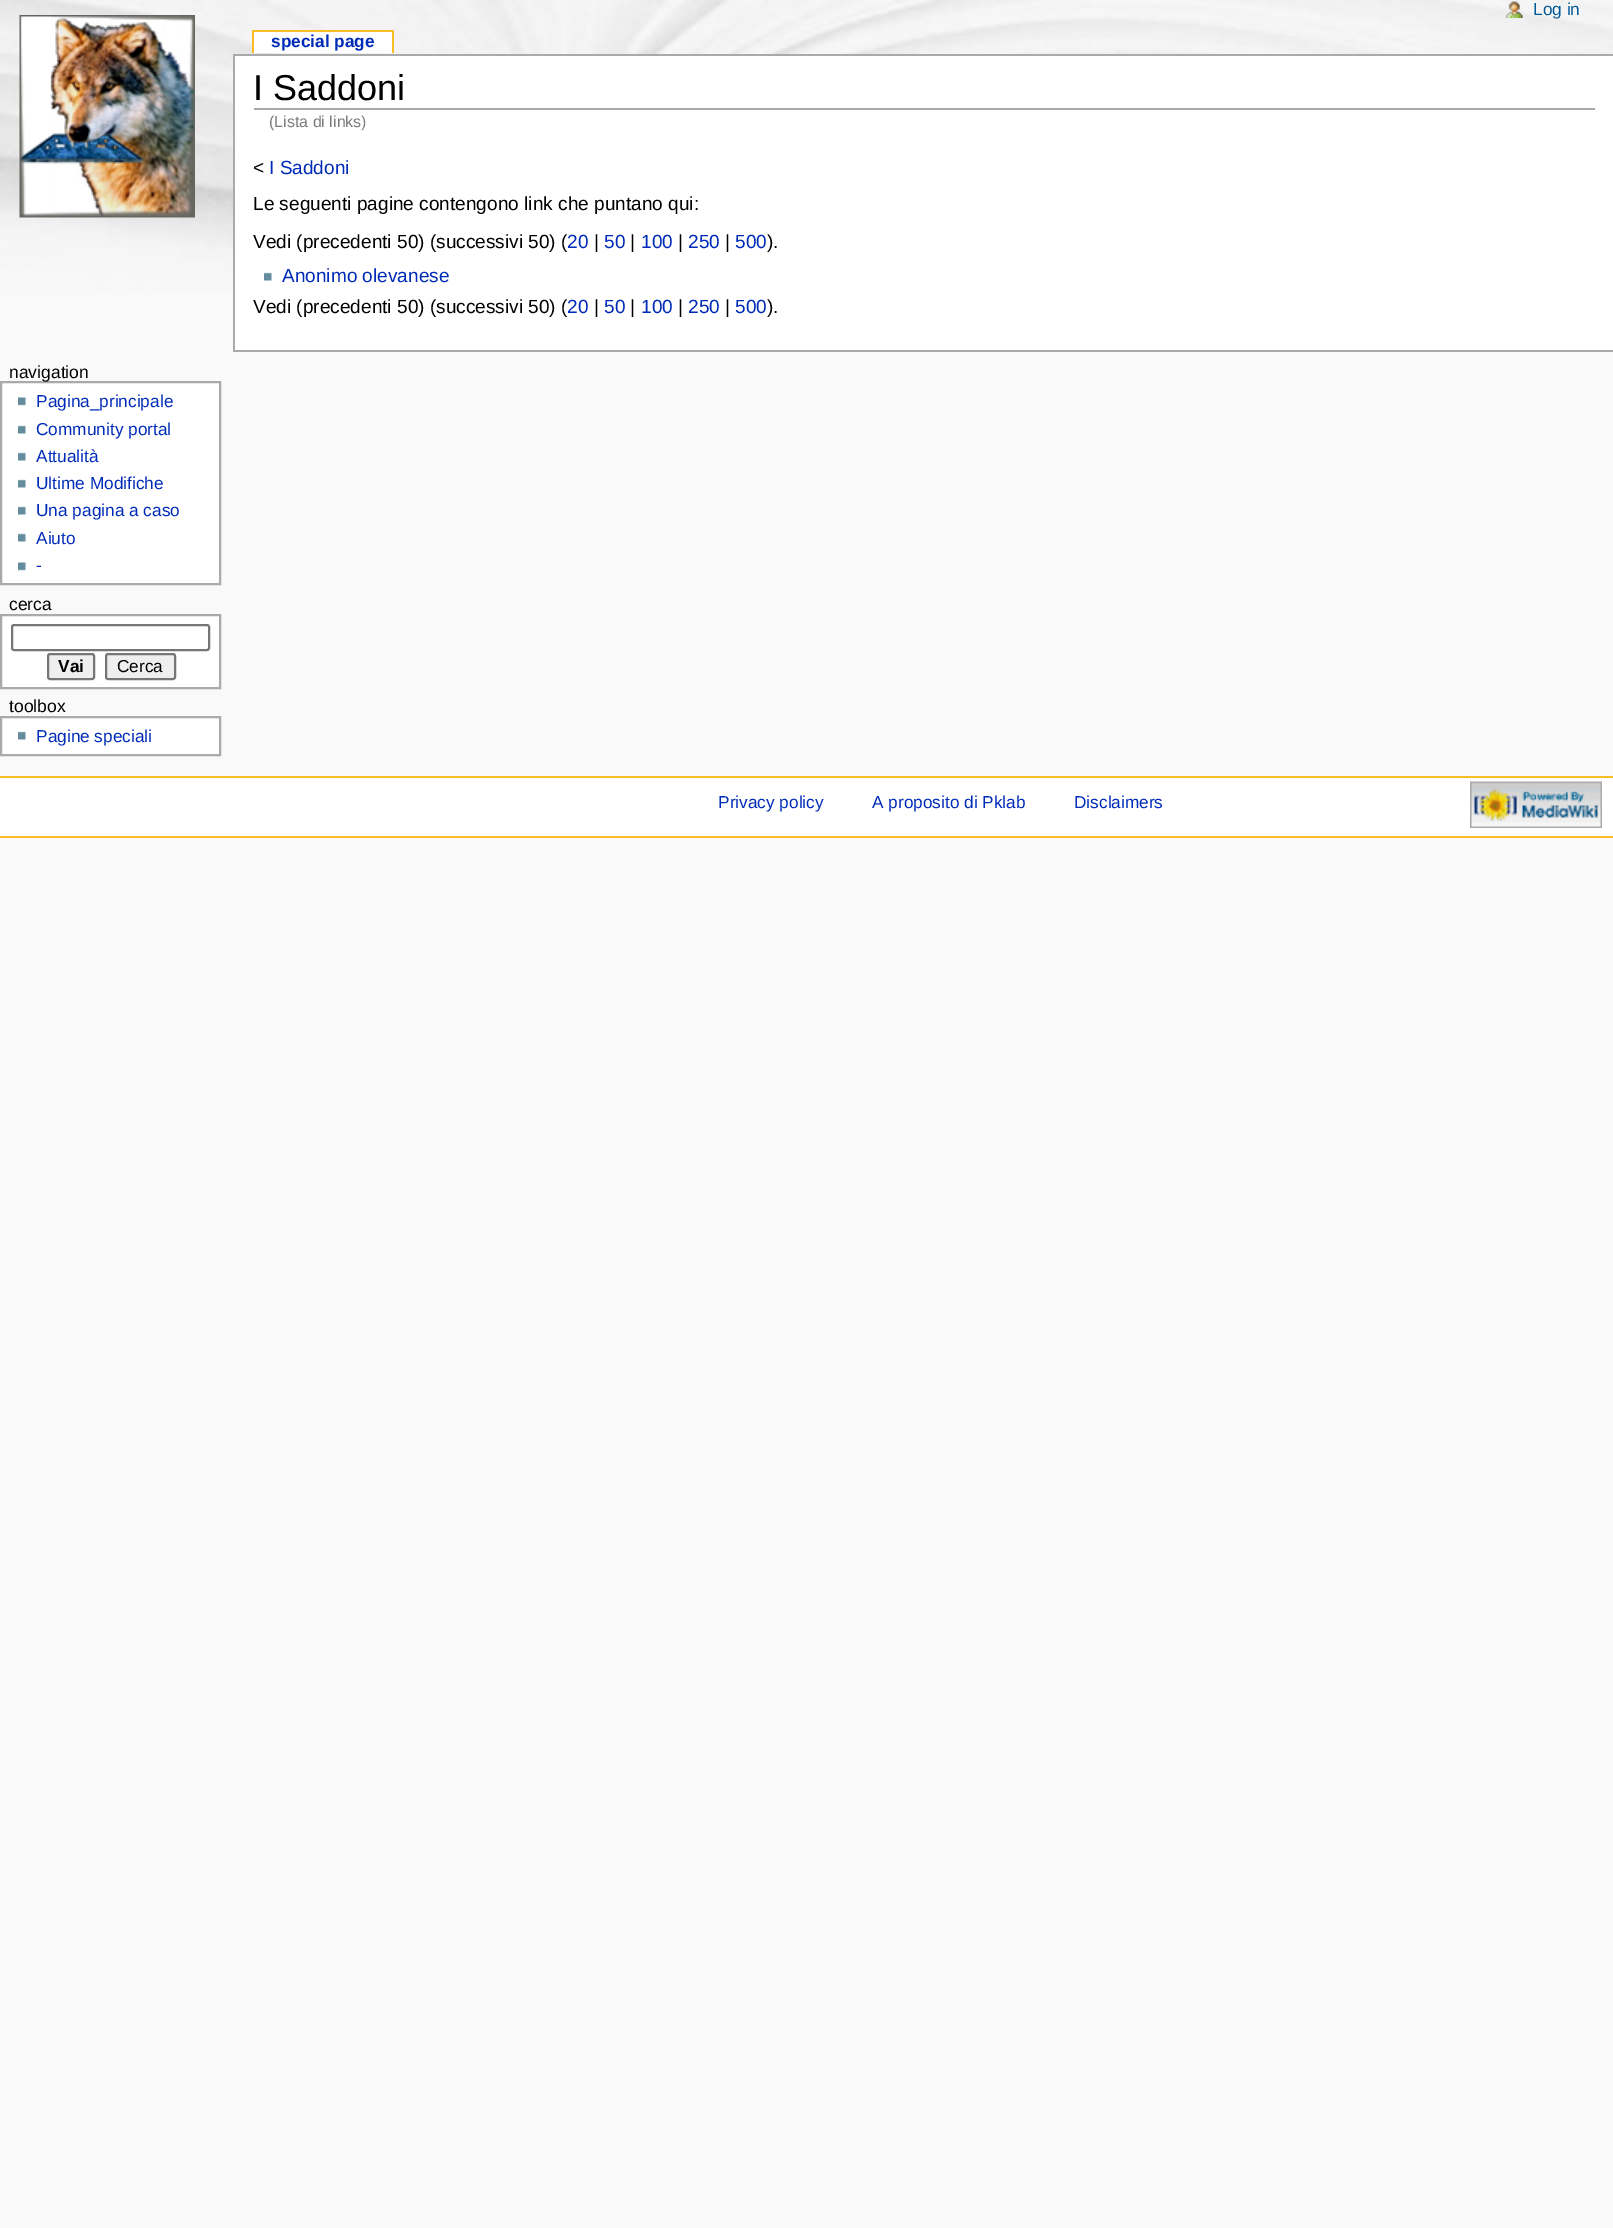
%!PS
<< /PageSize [1613 2228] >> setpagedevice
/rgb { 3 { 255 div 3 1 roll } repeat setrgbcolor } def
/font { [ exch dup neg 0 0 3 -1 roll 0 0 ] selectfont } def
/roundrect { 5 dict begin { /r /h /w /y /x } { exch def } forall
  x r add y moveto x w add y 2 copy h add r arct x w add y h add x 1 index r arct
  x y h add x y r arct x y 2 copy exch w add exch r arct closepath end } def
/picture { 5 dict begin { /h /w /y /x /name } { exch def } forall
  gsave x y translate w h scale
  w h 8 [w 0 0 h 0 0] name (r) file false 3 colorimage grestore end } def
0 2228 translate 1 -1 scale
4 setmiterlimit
249 249 249 rgb
0 0 1613 2228 rectfill
(img/1.rgb) 0 0 1613 292 picture
(img/2.rgb) 1505 1 18 17 picture
(img/3.rgb) 19 15 176 203 picture
[
  [254 32 138 21 255 255 255]
  [252 30 141 2 250 189 35]
  [392 30 2 23 250 189 35]
  [252 30 2 23 250 189 35]
] { aload pop rgb rectfill } forall
255 255 255 rgb
1 382 moveto 220 382 lineto 220 584 lineto 1 584 lineto closepath gsave fill grestore
170 170 170 rgb
2 setlinewidth
stroke
(img/4.rgb) 18 397 8 9 picture
(img/5.rgb) 18 425 8 9 picture
(img/5.rgb) 18 452 8 9 picture
(img/5.rgb) 18 479 8 9 picture
(img/5.rgb) 18 506 8 9 picture
(img/5.rgb) 18 533 8 9 picture
(img/4.rgb) 18 562 8 9 picture
255 255 255 rgb
1 615 moveto 220 615 lineto 220 688 lineto 1 688 lineto closepath gsave fill grestore
170 170 170 rgb
stroke
118 118 118 rgb
12 625 197 25 2 roundrect stroke
239 239 239 rgb
48 654 46 25 2 roundrect gsave fill grestore
118 118 118 rgb
stroke
239 239 239 rgb
106 654 69 25 2 roundrect gsave fill grestore
118 118 118 rgb
stroke
255 255 255 rgb
1 717 moveto 220 717 lineto 220 755 lineto 1 755 lineto closepath gsave fill grestore
170 170 170 rgb
stroke
(img/5.rgb) 18 731 8 9 picture
[
  [235 56 1378 294 255 255 255]
  [233 54 1380 2 170 170 170]
  [233 350 1380 2 170 170 170]
  [233 54 2 297 170 170 170]
  [254 108 1341 2 170 170 170]
] { aload pop rgb rectfill } forall
(img/5.rgb) 264 272 8 9 picture
[
  [0 778 1613 58 255 255 255]
  [0 776 1613 2 250 189 35]
  [0 836 1613 2 250 189 35]
] { aload pop rgb rectfill } forall
(img/6.rgb) 1470 781 132 47 picture
/LiberationSans-Regular 17.25 font
0 88 150 rgb
1533 15 moveto (Log in) show
/LiberationSans-Bold 17.25 font
0 43 184 rgb
271 47 moveto (special page) show
/LiberationSans-Regular 17.5 font
0 0 0 rgb
9 378 moveto (navigation) show
/LiberationSans-Regular 17.25 font
0 43 184 rgb
[
  [(Pagina_principale) 36 407]
  [(Community portal) 36 435]
  [(Attualità) 36 462]
  [(Ultime Modifiche) 36 489]
  [(Una pagina a caso) 36 516]
  [(Aiuto) 36 544]
  [(-) 36 571]
] { aload pop moveto show } forall
/LiberationSans-Regular 17.5 font
0 0 0 rgb
9 610 moveto (cerca) show
/LiberationSans-Bold 17.25 font
58 672 moveto (Vai) show
/LiberationSans-Regular 17.25 font
117 672 moveto (Cerca) show
/LiberationSans-Regular 17.5 font
9 712 moveto (toolbox) show
/LiberationSans-Regular 17.25 font
0 43 184 rgb
36 742 moveto (Pagine speciali) show
/LiberationSans-Regular 36 font
0 0 0 rgb
253 100 moveto (I Saddoni) show
/LiberationSans-Regular 16 font
125 125 125 rgb
269 127 moveto (\(Lista di links\)) show
/LiberationSans-Regular 19.05 font
0 0 0 rgb
253 174 moveto (<) show
0 43 184 rgb
269 174 moveto (I Saddoni) show
0 0 0 rgb
253 210 moveto (Le seguenti pagine contengono link che puntano qui:) show
253 248 moveto (Vedi \(precedenti 50\) \(successivi 50\) \() show
0 43 184 rgb
567 248 moveto (20) show
0 0 0 rgb
594 248 moveto (|) show
0 43 184 rgb
604 248 moveto (50) show
0 0 0 rgb
630 248 moveto (|) show
0 43 184 rgb
641 248 moveto (100) show
0 0 0 rgb
678 248 moveto (|) show
0 43 184 rgb
688 248 moveto (250) show
0 0 0 rgb
725 248 moveto (|) show
0 43 184 rgb
735 248 moveto (500) show
0 0 0 rgb
767 248 moveto (\).) show
0 43 184 rgb
282 282 moveto (Anonimo olevanese) show
0 0 0 rgb
253 313 moveto (Vedi \(precedenti 50\) \(successivi 50\) \() show
0 43 184 rgb
567 313 moveto (20) show
0 0 0 rgb
594 313 moveto (|) show
0 43 184 rgb
604 313 moveto (50) show
0 0 0 rgb
630 313 moveto (|) show
0 43 184 rgb
641 313 moveto (100) show
0 0 0 rgb
678 313 moveto (|) show
0 43 184 rgb
688 313 moveto (250) show
0 0 0 rgb
725 313 moveto (|) show
0 43 184 rgb
735 313 moveto (500) show
0 0 0 rgb
767 313 moveto (\).) show
/LiberationSans-Regular 17.25 font
0 43 184 rgb
[
  [(Privacy policy) 718 808]
  [(A proposito di Pklab) 872 808]
  [(Disclaimers) 1074 808]
] { aload pop moveto show } forall
showpage
